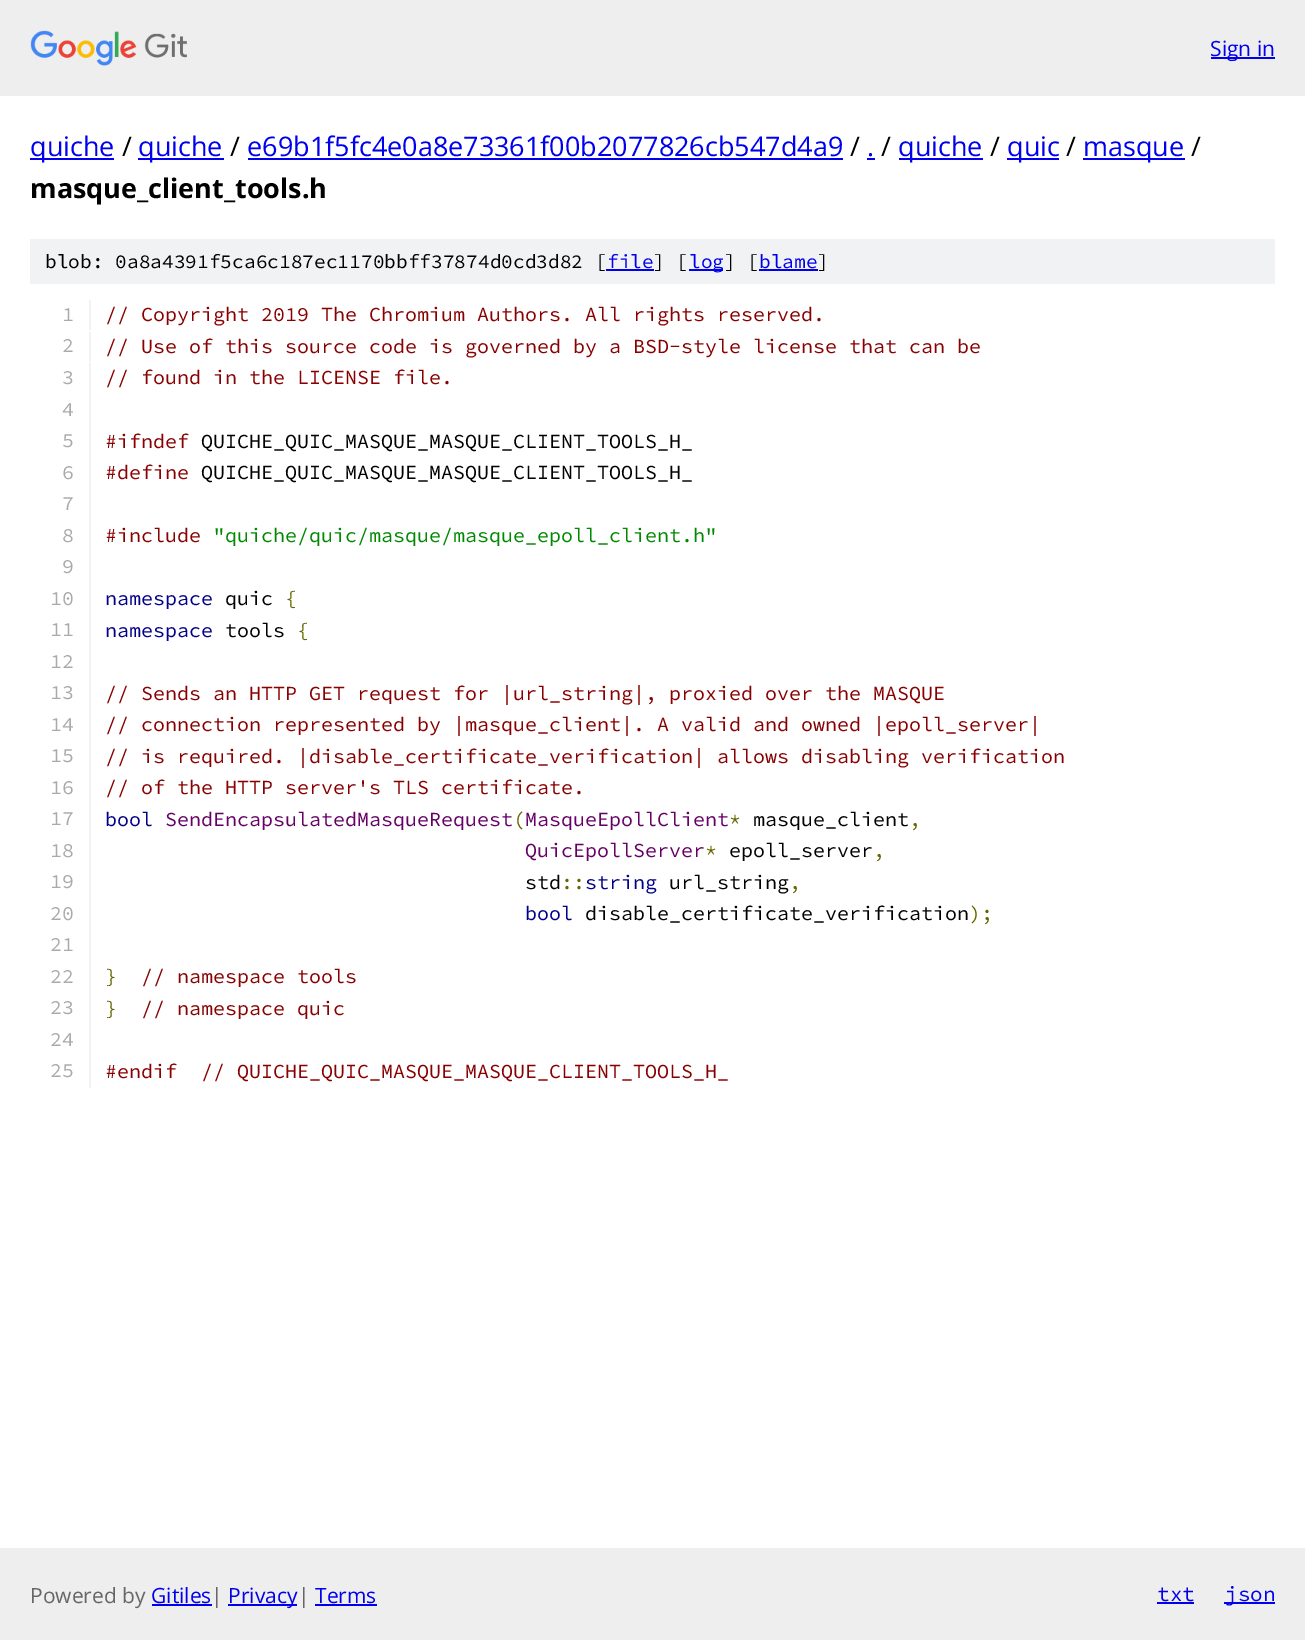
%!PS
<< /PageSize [1305 1640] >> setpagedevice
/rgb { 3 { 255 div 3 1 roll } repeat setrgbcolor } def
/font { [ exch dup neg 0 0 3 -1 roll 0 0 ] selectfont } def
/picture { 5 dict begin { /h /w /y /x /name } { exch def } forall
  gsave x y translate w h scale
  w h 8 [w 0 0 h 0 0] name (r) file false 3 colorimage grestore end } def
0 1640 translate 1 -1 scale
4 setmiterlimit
255 255 255 rgb
0 0 1305 1640 rectfill
238 238 238 rgb
0 0 1305 96 rectfill
(img/1.rgb) 30 30 157 36 picture
[
  [1211 57 64 2 0 0 238]
  [30 158 84 2 0 0 238]
  [138 158 86 2 0 0 238]
  [248 158 595 2 0 0 238]
  [867 158 8 2 0 0 238]
  [899 158 84 2 0 0 238]
  [1007 158 52 2 0 0 238]
  [1083 158 102 2 0 0 238]
  [30 239 1245 45 241 242 243]
  [606 269 48 2 0 0 238]
  [689 269 34 2 0 0 238]
  [759 269 59 2 0 0 238]
  [89 300 2 30 241 242 243]
  [89 332 2 30 241 242 243]
  [89 363 2 725 241 242 243]
  [0 1548 1305 92 238 238 238]
  [152 1604 60 2 0 0 238]
  [228 1604 69 2 0 0 238]
  [315 1604 62 2 0 0 238]
  [1157 1602 37 2 0 0 238]
  [1224 1602 51 2 0 0 238]
] { aload pop rgb rectfill } forall
/OpenSans-Regular 21 font
1210 56 moveto (Sign in) show
/OpenSans-Regular 27 font
30 156 moveto (quiche) show
0 0 0 rgb
122 156 moveto (/) show
0 0 238 rgb
138 156 moveto (quiche) show
0 0 0 rgb
230 156 moveto (/) show
0 0 238 rgb
247 156 moveto (e69b1f5fc4e0a8e73361f00b2077826cb547d4a9) show
0 0 0 rgb
850 156 moveto (/) show
0 0 238 rgb
867 156 moveto (.) show
0 0 0 rgb
881 156 moveto (/) show
0 0 238 rgb
898 156 moveto (quiche) show
0 0 0 rgb
990 156 moveto (/) show
0 0 238 rgb
1007 156 moveto (quic) show
0 0 0 rgb
1066 156 moveto (/) show
0 0 238 rgb
1083 156 moveto (masque) show
0 0 0 rgb
1191 156 moveto (/) show
/OpenSans-Bold 27 font
30 198 moveto (masque_client_tools.h) show
/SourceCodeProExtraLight-ExtraLight 19.5 font
45 268 moveto (blob: 0a8a4391f5ca6c187ec1170bbff37874d0cd3d82 [) show
0 0 238 rgb
607 268 moveto (file) show
0 0 0 rgb
653 268 moveto (] [) show
0 0 238 rgb
689 268 moveto (log) show
0 0 0 rgb
724 268 moveto (] [) show
0 0 238 rgb
759 268 moveto (blame) show
0 0 0 rgb
817 268 moveto (]) show
/SourceCodeProExtraLight-ExtraLight 20 font
170 170 170 rgb
62 321 moveto (1) show
136 0 0 rgb
105 321 moveto (// Copyright 2019 The Chromium Authors. All rights reserved.) show
170 170 170 rgb
62 352 moveto (2) show
136 0 0 rgb
105 353 moveto (// Use of this source code is governed by a BSD-style license that can be) show
170 170 170 rgb
62 384 moveto (3) show
136 0 0 rgb
105 384 moveto (// found in the LICENSE file.) show
170 170 170 rgb
62 416 moveto (4) show
62 447 moveto (5) show
136 0 0 rgb
105 448 moveto (#ifndef) show
0 0 0 rgb
201 448 moveto (QUICHE_QUIC_MASQUE_MASQUE_CLIENT_TOOLS_H_) show
170 170 170 rgb
62 479 moveto (6) show
136 0 0 rgb
105 479 moveto (#define) show
0 0 0 rgb
201 479 moveto (QUICHE_QUIC_MASQUE_MASQUE_CLIENT_TOOLS_H_) show
170 170 170 rgb
62 510 moveto (7) show
62 542 moveto (8) show
136 0 0 rgb
105 542 moveto (#include) show
0 136 0 rgb
213 542 moveto ("quiche/quic/masque/masque_epoll_client.h") show
170 170 170 rgb
62 573 moveto (9) show
50 605 moveto (10) show
0 0 136 rgb
105 605 moveto (namespace) show
0 0 0 rgb
225 605 moveto (quic) show
102 102 0 rgb
285 605 moveto ({) show
170 170 170 rgb
50 636 moveto (11) show
0 0 136 rgb
105 637 moveto (namespace) show
0 0 0 rgb
225 637 moveto (tools) show
102 102 0 rgb
297 637 moveto ({) show
170 170 170 rgb
50 668 moveto (12) show
50 699 moveto (13) show
136 0 0 rgb
105 700 moveto (// Sends an HTTP GET request for |url_string|, proxied over the MASQUE) show
170 170 170 rgb
50 731 moveto (14) show
136 0 0 rgb
105 731 moveto (// connection represented by |masque_client|. A valid and owned |epoll_server|) show
170 170 170 rgb
50 762 moveto (15) show
136 0 0 rgb
105 763 moveto (// is required. |disable_certificate_verification| allows disabling verification) show
170 170 170 rgb
50 794 moveto (16) show
136 0 0 rgb
105 794 moveto (// of the HTTP server's TLS certificate.) show
170 170 170 rgb
50 825 moveto (17) show
0 0 136 rgb
105 826 moveto (bool) show
102 0 102 rgb
165 826 moveto (SendEncapsulatedMasqueRequest MasqueEpollClient) show
102 102 0 rgb
513 826 moveto (\() show
729 826 moveto (*) show
0 0 0 rgb
753 826 moveto (masque_client) show
102 102 0 rgb
909 826 moveto (,) show
170 170 170 rgb
50 857 moveto (18) show
102 0 102 rgb
525 857 moveto (QuicEpollServer) show
102 102 0 rgb
705 857 moveto (*) show
0 0 0 rgb
729 857 moveto (epoll_server) show
102 102 0 rgb
873 857 moveto (,) show
170 170 170 rgb
50 888 moveto (19) show
0 0 0 rgb
525 889 moveto (std) show
102 102 0 rgb
561 889 moveto (::) show
0 0 136 rgb
585 889 moveto (string) show
0 0 0 rgb
669 889 moveto (url_string) show
102 102 0 rgb
789 889 moveto (,) show
170 170 170 rgb
50 920 moveto (20) show
0 0 136 rgb
525 920 moveto (bool) show
0 0 0 rgb
585 920 moveto (disable_certificate_verification) show
102 102 0 rgb
969 920 moveto (\);) show
170 170 170 rgb
50 951 moveto (21) show
50 983 moveto (22) show
102 102 0 rgb
105 983 moveto (}) show
136 0 0 rgb
141 983 moveto (// namespace tools) show
170 170 170 rgb
50 1014 moveto (23) show
102 102 0 rgb
105 1015 moveto (}) show
136 0 0 rgb
141 1015 moveto (// namespace quic) show
170 170 170 rgb
50 1046 moveto (24) show
50 1077 moveto (25) show
136 0 0 rgb
105 1078 moveto (#endif) show
201 1078 moveto (// QUICHE_QUIC_MASQUE_MASQUE_CLIENT_TOOLS_H_) show
/OpenSans-Regular 21 font
102 102 102 rgb
30 1603 moveto (Powered by) show
0 0 238 rgb
151 1603 moveto (Gitiles) show
102 102 102 rgb
211 1603 moveto (|) show
0 0 238 rgb
228 1603 moveto (Privacy) show
102 102 102 rgb
298 1603 moveto (|) show
0 0 238 rgb
315 1603 moveto (Terms) show
/SourceCodeProExtraLight-ExtraLight 21 font
1157 1601 moveto (txt) show
1225 1601 moveto (json) show
showpage
